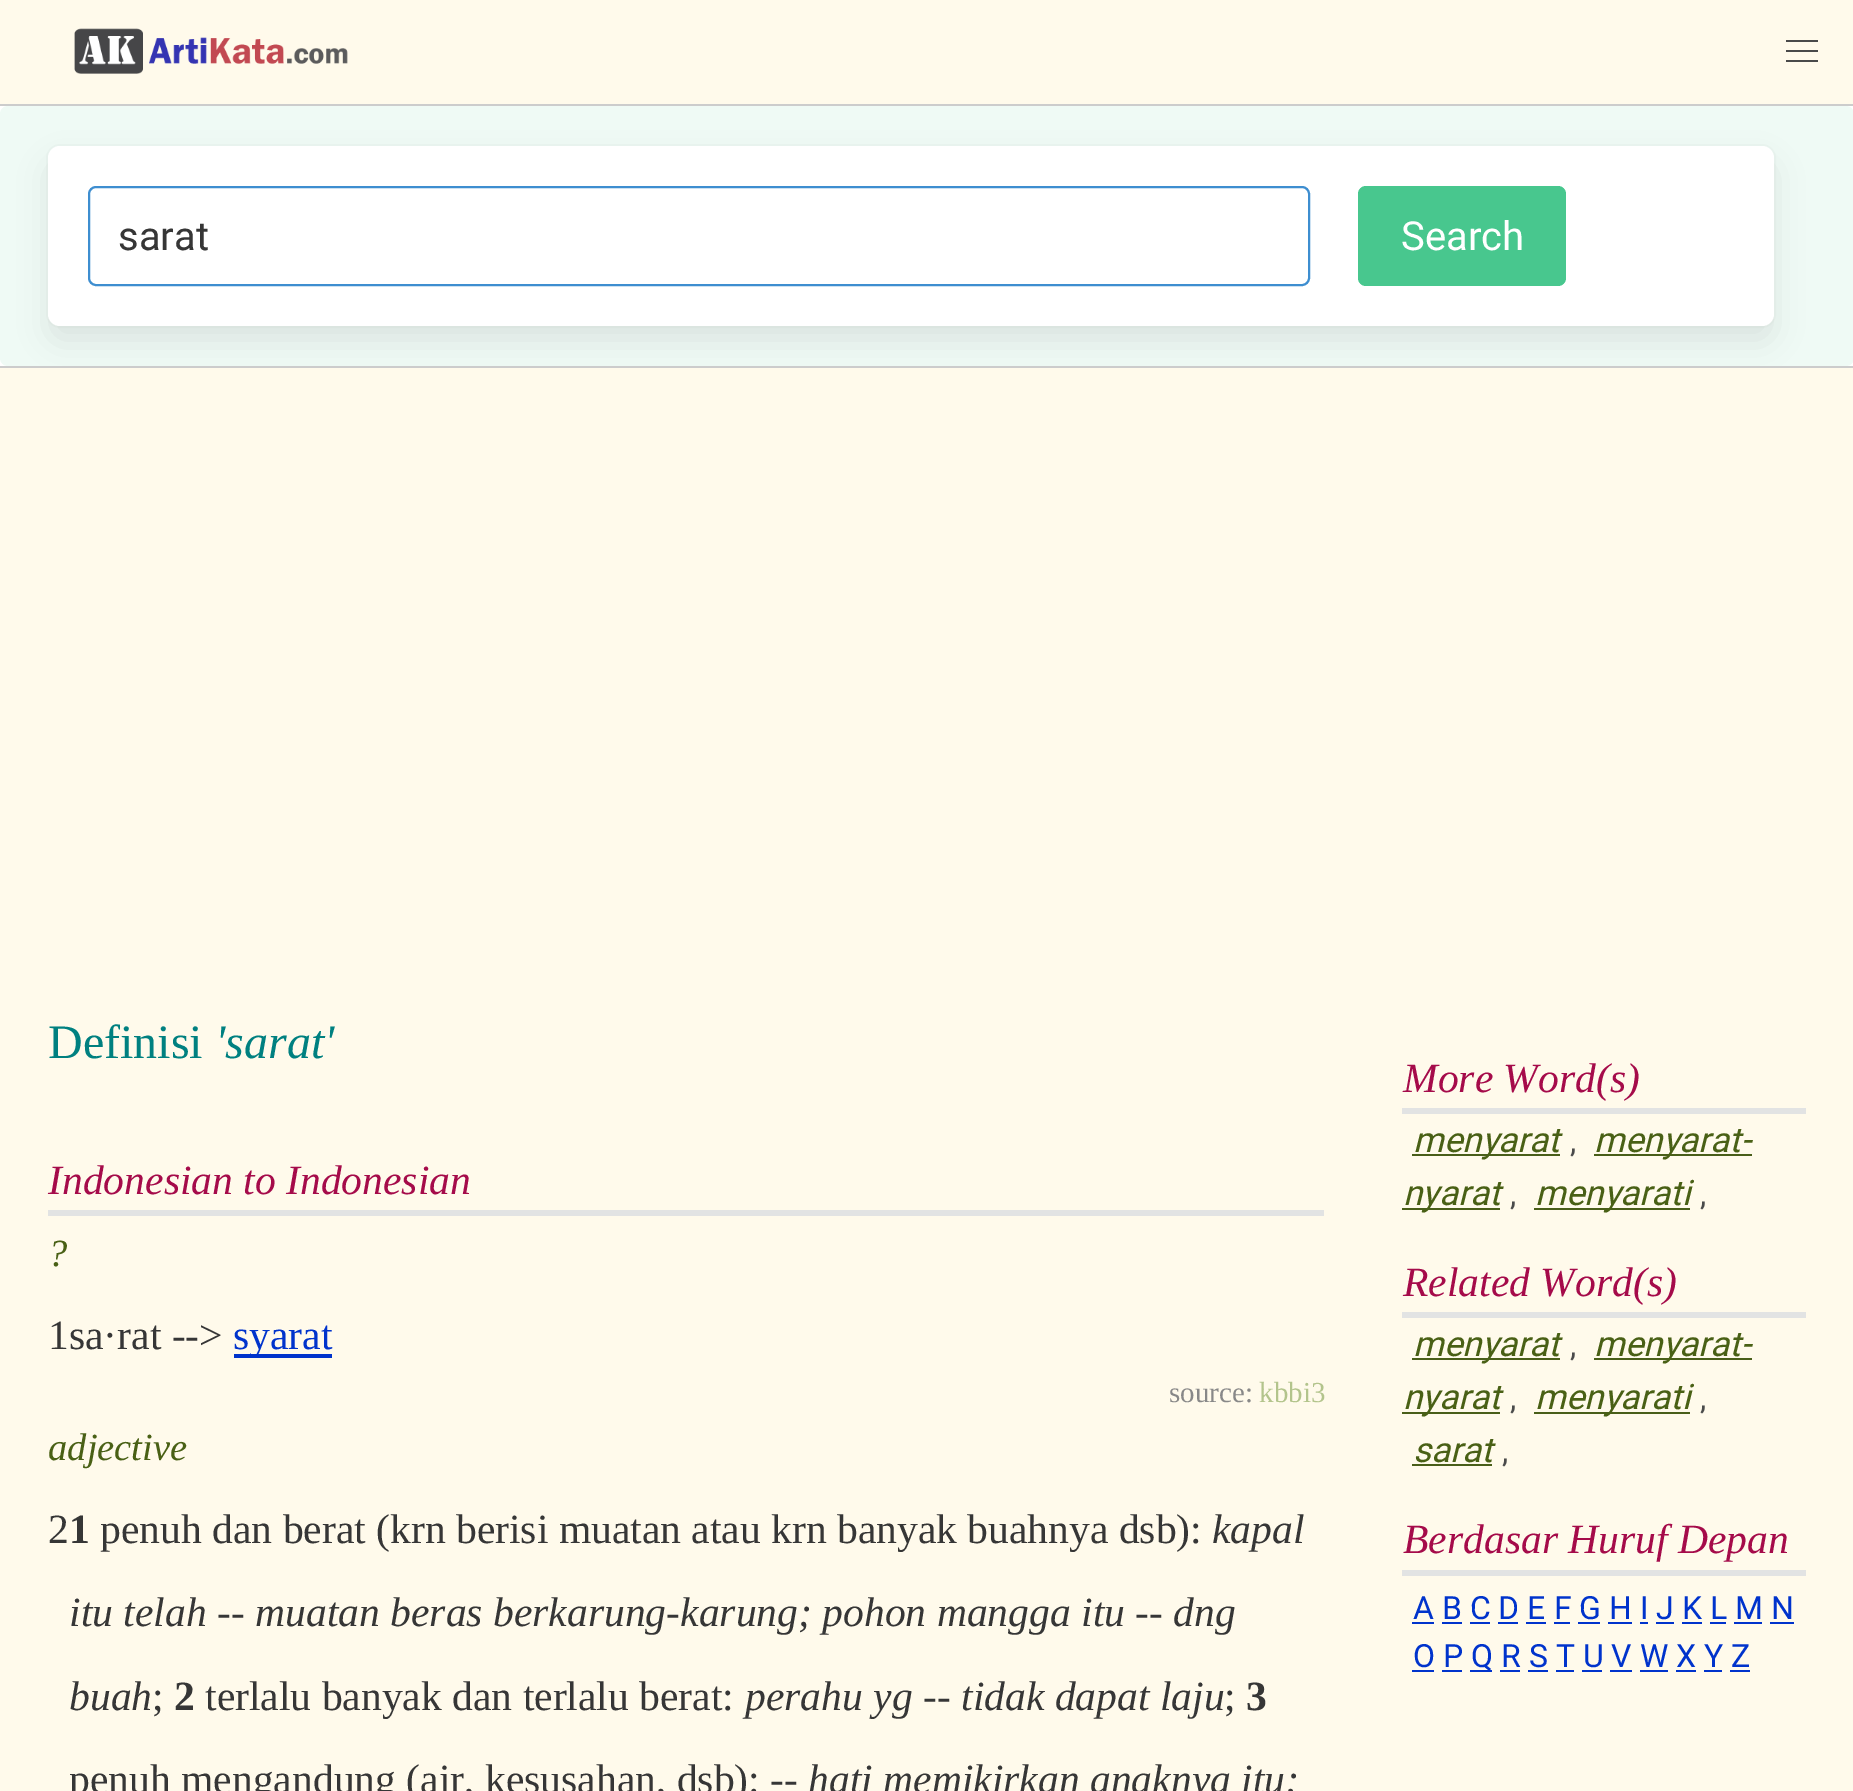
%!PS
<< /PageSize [1853 1791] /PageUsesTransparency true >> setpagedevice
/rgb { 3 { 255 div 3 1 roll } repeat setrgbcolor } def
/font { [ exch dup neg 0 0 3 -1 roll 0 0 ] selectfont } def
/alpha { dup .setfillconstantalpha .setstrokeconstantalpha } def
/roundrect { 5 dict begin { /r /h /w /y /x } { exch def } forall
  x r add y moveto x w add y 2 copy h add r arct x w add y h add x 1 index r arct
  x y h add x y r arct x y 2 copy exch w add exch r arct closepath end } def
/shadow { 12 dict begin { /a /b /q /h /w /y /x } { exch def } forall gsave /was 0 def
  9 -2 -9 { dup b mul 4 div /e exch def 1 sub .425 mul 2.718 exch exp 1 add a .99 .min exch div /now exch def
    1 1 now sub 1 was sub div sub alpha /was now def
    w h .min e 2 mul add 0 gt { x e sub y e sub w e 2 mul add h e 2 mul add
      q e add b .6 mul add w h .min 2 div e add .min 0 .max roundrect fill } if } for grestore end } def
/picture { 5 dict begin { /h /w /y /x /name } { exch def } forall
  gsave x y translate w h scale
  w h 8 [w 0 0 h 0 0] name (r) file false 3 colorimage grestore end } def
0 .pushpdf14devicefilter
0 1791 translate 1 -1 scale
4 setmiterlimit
255 255 255 rgb
0 0 1853 1791 rectfill
255 250 235 rgb
0 0 1853 104 rectfill
204 204 204 rgb
0 104 1853 2 rectfill
(img/1.rgb) 74 28 274 46 picture
[
  [1786 40 32 2 74 74 74]
  [1786 50 32 2 74 74 74]
  [1786 60 32 2 74 74 74]
] { aload pop rgb rectfill } forall
239 250 245 rgb
0 106 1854 260 8 roundrect fill
234 245 240 rgb
2 setlinewidth
47 145 1728 182 13 roundrect stroke
10 10 10 rgb
52 166 1718 172 8 16 0.1 shadow
255 255 255 rgb
48 146 1726 180 12 roundrect fill
62 142 208 rgb
89 187 1220 98 7 roundrect stroke
72 199 142 rgb
1358 186 208 100 8 roundrect fill
[
  [0 368 1853 1423 255 250 235]
  [0 366 1853 2 204 204 204]
  [48 1210 1276 6 226 227 227]
  [234 1354 98 4 0 51 204]
  [1402 1108 404 6 226 227 227]
  [1412 1154 148 2 73 94 25]
  [1594 1154 158 2 73 94 25]
  [1402 1208 98 2 73 94 25]
  [1534 1208 156 2 73 94 25]
  [1402 1312 404 6 226 227 227]
  [1412 1358 148 2 73 94 25]
  [1594 1358 158 2 73 94 25]
  [1402 1412 98 2 73 94 25]
  [1534 1412 156 2 73 94 25]
  [1412 1464 80 2 73 94 25]
  [1402 1570 404 6 226 227 227]
  [1412 1622 22 2 0 51 204]
  [1442 1622 20 2 0 51 204]
  [1470 1622 20 2 0 51 204]
  [1498 1622 20 2 0 51 204]
  [1526 1622 20 2 0 51 204]
  [1554 1622 16 2 0 51 204]
  [1578 1622 22 2 0 51 204]
  [1608 1622 24 2 0 51 204]
  [1640 1622 8 2 0 51 204]
  [1656 1622 18 2 0 51 204]
  [1682 1622 20 2 0 51 204]
  [1710 1622 16 2 0 51 204]
  [1734 1622 28 2 0 51 204]
  [1770 1622 24 2 0 51 204]
  [1412 1670 22 2 0 51 204]
  [1470 1670 22 2 0 51 204]
  [1442 1670 20 2 0 51 204]
  [1500 1670 20 2 0 51 204]
  [1528 1670 20 2 0 51 204]
  [1556 1670 18 2 0 51 204]
  [1582 1670 20 2 0 51 204]
  [1610 1670 22 2 0 51 204]
  [1640 1670 28 2 0 51 204]
  [1676 1670 20 2 0 51 204]
  [1704 1670 18 2 0 51 204]
  [1730 1670 20 2 0 51 204]
] { aload pop rgb rectfill } forall
/Roboto-Regular 40 font
54 54 54 rgb
118 250 moveto (sarat) show
255 255 255 rgb
1401 250 moveto (Search) show
/LiberationSerif-Regular 48 font
0 128 128 rgb
48 1058 moveto (Definisi) show
/LiberationSerif-Italic 48 font
215 1058 moveto ('sarat') show
/LiberationSerif-Italic 41.6 font
165 11 74 rgb
48 1194 moveto (Indonesian to Indonesian) show
/LiberationSerif-Italic 38.5 font
73 96 21 rgb
48 1266 moveto (?) show
/LiberationSerif-Regular 41.6 font
54 54 54 rgb
48 1349 moveto (1sa·rat -->) show
0 51 204 rgb
233 1349 moveto (syarat) show
/LiberationSerif-Regular 29 font
136 136 136 rgb
1169 1402 moveto (source:) show
179 196 140 rgb
1259 1402 moveto (kbbi3) show
/LiberationSerif-Italic 38.5 font
73 96 21 rgb
48 1460 moveto (adjective) show
/LiberationSerif-Regular 41.6 font
54 54 54 rgb
48 1543 moveto (2) show
/LiberationSerif-Bold 41.6 font
69 1543 moveto (1) show
/LiberationSerif-Regular 41.6 font
100 1543 moveto (penuh dan berat \(krn berisi muatan atau krn banyak buahnya dsb\):) show
/LiberationSerif-Italic 41.6 font
[
  [(kapal) 1212 1543]
  [(itu telah -- muatan beras berkarung-karung; pohon mangga itu -- dng) 69 1626]
  [(buah) 69 1710]
] { aload pop moveto show } forall
/LiberationSerif-Regular 41.6 font
152 1710 moveto (;) show
/LiberationSerif-Bold 41.6 font
174 1710 moveto (2) show
/LiberationSerif-Regular 41.6 font
205 1710 moveto (terlalu banyak dan terlalu berat:) show
/LiberationSerif-Italic 41.6 font
745 1710 moveto (perahu yg -- tidak dapat laju) show
/LiberationSerif-Regular 41.6 font
1224 1710 moveto (;) show
/LiberationSerif-Bold 41.6 font
1246 1710 moveto (3) show
/LiberationSerif-Regular 41.6 font
69 1793 moveto (penuh mengandung \(air, kesusahan, dsb\): --) show
/LiberationSerif-Italic 41.6 font
808 1793 moveto (hati memikirkan anaknya itu;) show
165 11 74 rgb
1403 1092 moveto (More Word\(s\)) show
/Roboto-Italic 35 font
73 96 21 rgb
1413 1152 moveto (menyarat) show
/Roboto-Regular 32 font
74 74 74 rgb
1570 1152 moveto (,) show
/Roboto-Italic 35 font
73 96 21 rgb
1594 1152 moveto (menyarat-) show
1403 1205 moveto (nyarat) show
/Roboto-Regular 32 font
74 74 74 rgb
1510 1205 moveto (,) show
/Roboto-Italic 35 font
73 96 21 rgb
1535 1205 moveto (menyarati) show
/Roboto-Regular 32 font
74 74 74 rgb
1700 1205 moveto (,) show
/LiberationSerif-Italic 41.6 font
165 11 74 rgb
1403 1296 moveto (Related Word\(s\)) show
/Roboto-Italic 35 font
73 96 21 rgb
1413 1356 moveto (menyarat) show
/Roboto-Regular 32 font
74 74 74 rgb
1570 1356 moveto (,) show
/Roboto-Italic 35 font
73 96 21 rgb
1594 1356 moveto (menyarat-) show
1403 1409 moveto (nyarat) show
/Roboto-Regular 32 font
74 74 74 rgb
1510 1409 moveto (,) show
/Roboto-Italic 35 font
73 96 21 rgb
1535 1409 moveto (menyarati) show
/Roboto-Regular 32 font
74 74 74 rgb
1700 1409 moveto (,) show
/Roboto-Italic 35 font
73 96 21 rgb
1413 1462 moveto (sarat) show
/Roboto-Regular 32 font
74 74 74 rgb
1502 1462 moveto (,) show
/LiberationSerif-Italic 41.6 font
165 11 74 rgb
1403 1553 moveto (Berdasar Huruf Depan) show
/Roboto-Regular 32 font
0 51 204 rgb
[
  [(A B C D E F G H I J K L M N) 1413 1619]
  [(O P) 1413 1667]
  [(Q R S T U V W X Y Z) 1471 1667]
] { aload pop moveto show } forall
.poppdf14devicefilter showpage
